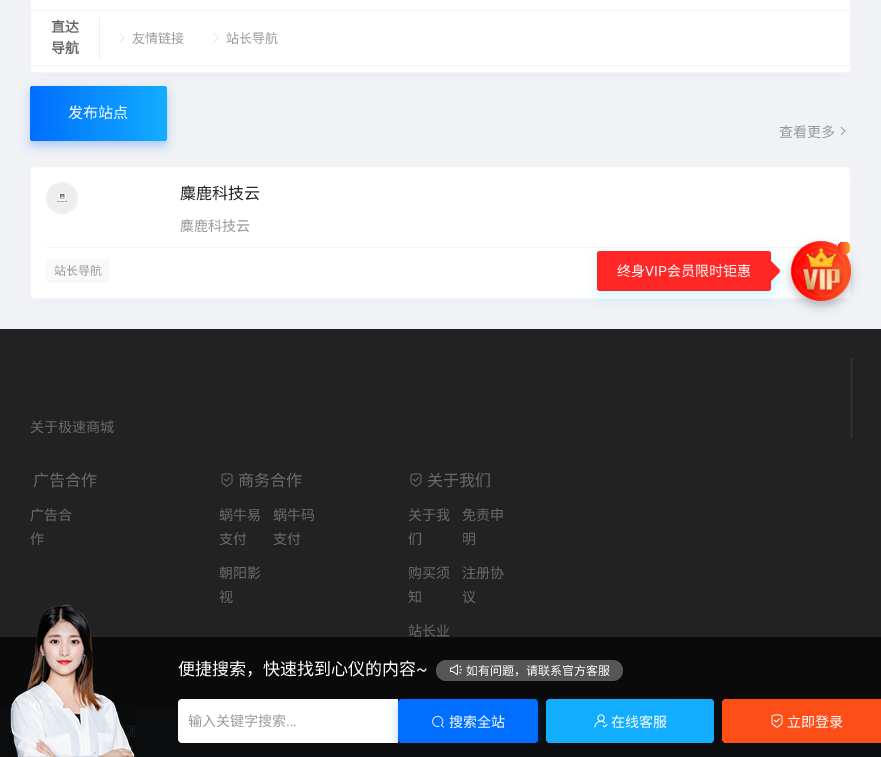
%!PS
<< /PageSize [881 757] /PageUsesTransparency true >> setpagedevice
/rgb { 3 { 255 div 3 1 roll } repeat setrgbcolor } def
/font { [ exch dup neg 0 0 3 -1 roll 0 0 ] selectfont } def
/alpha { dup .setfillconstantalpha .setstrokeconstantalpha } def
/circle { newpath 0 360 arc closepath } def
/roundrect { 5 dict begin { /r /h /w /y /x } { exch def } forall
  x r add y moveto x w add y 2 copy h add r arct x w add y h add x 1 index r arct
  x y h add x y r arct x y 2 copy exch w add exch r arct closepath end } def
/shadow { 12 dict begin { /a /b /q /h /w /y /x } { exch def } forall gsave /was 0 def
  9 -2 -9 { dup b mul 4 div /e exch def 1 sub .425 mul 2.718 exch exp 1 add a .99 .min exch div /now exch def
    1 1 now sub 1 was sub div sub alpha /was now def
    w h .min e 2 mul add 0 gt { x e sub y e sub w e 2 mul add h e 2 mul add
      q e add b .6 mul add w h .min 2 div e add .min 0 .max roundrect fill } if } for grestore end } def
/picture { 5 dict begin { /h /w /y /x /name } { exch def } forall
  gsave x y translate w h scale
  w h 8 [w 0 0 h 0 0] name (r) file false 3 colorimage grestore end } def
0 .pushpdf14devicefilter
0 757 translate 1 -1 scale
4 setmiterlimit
240 242 245 rgb
0 0 881 757 rectfill
230 234 245 rgb
40 -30 801 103 0 10 1 shadow
255 255 255 rgb
30.5 -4.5 820 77 3.5 roundrect gsave fill grestore
244 244 244 rgb
stroke
30.5 10.5 820 55 rectstroke
238 238 238 rgb
99 17 1 42 rectfill
(img/1.rgb) 119 32 6 11 picture
(img/1.rgb) 213 32 6 11 picture
16 110 253 rgb
30 91 137 55 4 5 0.3 shadow
gsave 30 86 137 55 4 roundrect clip newpath
<< /ShadingType 2 /ColorSpace /DeviceRGB /Coords [30 114 167 114] /Extend [true true] /Function << /FunctionType 2 /Domain [0 1] /C0 [0 0.431 1] /C1 [0.075 0.678 1] /N 1 >> >> shfill grestore
(img/2.rgb) 840 126 6 10 picture
34 34 34 rgb
0 329 881 378 rectfill
230 234 245 rgb
40 186 801 113 0 10 1 shadow
255 255 255 rgb
30.5 166.5 820 132 3.5 roundrect gsave fill grestore
244 244 244 rgb
stroke
(img/3.rgb) 46 182 32 32 picture
46 247 759 1 rectfill
249 249 249 rgb
46 259 64 24 4 roundrect fill
35 50 56 rgb
791 246 60 60 30 5 0.3 shadow
38 199 252 rgb
757 266 20 20 3 5 0.2 shadow
0.25 alpha
255 0 0 rgb
821 271 30 circle fill
821 271 30 circle fill
821 271 30 circle fill
1 alpha
(img/4.rgb) 791 241 60 60 picture
gsave 844 248 6 circle clip newpath
<< /ShadingType 2 /ColorSpace /DeviceRGB /Coords [838 248 850 248] /Extend [true true] /Function << /FunctionType 2 /Domain [0 1] /C0 [0.988 0.149 0.149] /C1 [0.988 0.651 0.149] /N 1 >> >> shfill grestore
38 199 252 rgb
597 256 174 40 3 5 0.2 shadow
255 38 38 rgb
755 269 moveto 765 259 lineto 766 258 768 258 769 259 curveto 779 269 lineto 780 270 780 272 779 273 curveto 769 283 lineto 768 284 766 284 765 283 curveto 755 273 lineto 754 272 754 270 755 269 curveto closepath fill
597 251 174 40 3 roundrect fill
57 60 64 rgb
851 359 1 79 0 0.5 1 shadow
37 40 42 rgb
850 359 1 79 rectfill
(img/5.rgb) 221 473 12 14 picture
(img/5.rgb) 410 473 12 14 picture
0 707 881 50 rectfill
/NotoSansCJKSC-Bold 14 font
102 102 102 rgb
51 32 moveto (直达) show
51 53 moveto (导航) show
/NotoSansCJKSC-Regular 13 font
153 153 153 rgb
132 43 moveto (友情链接) show
226 43 moveto (站长导航) show
/NotoSansCJKSC-Regular 15 font
255 255 255 rgb
68 118 moveto (发布站点) show
/NotoSansCJKSC-Regular 14 font
153 153 153 rgb
779 137 moveto (查看更多) show
/NotoSansCJKSC-Regular 16 font
38 38 38 rgb
180 199 moveto (麋鹿科技云) show
/NotoSansCJKSC-Regular 14 font
153 153 153 rgb
180 231 moveto (麋鹿科技云) show
/NotoSansCJKSC-Regular 12 font
54 275 moveto (站长导航) show
/NotoSansCJKSC-Regular 14 font
255 255 255 rgb
617 276 moveto (终身) show
/Roboto-Regular 14 font
645 276 moveto (VIP) show
/NotoSansCJKSC-Regular 14 font
667 276 moveto (会员限时钜惠) show
103 107 111 rgb
30 432 moveto (关于极速商城) show
/NotoSansCJKSC-Regular 16 font
33 486 moveto (广告合作) show
/NotoSansCJKSC-Regular 14 font
30 520 moveto (广告合) show
30 544 moveto (作) show
/NotoSansCJKSC-Regular 16 font
238 486 moveto (商务合作) show
/NotoSansCJKSC-Regular 14 font
[
  [(蜗牛易) 219 520]
  [(支付) 219 544]
  [(蜗牛码) 273 520]
  [(支付) 273 544]
  [(朝阳影) 219 578]
  [(视) 219 602]
] { aload pop moveto show } forall
/NotoSansCJKSC-Regular 16 font
427 486 moveto (关于我们) show
/NotoSansCJKSC-Regular 14 font
[
  [(关于我) 408 520]
  [(们) 408 544]
  [(免责申) 462 520]
  [(明) 462 544]
  [(购买须) 408 578]
  [(知) 408 602]
  [(注册协) 462 578]
  [(议) 462 602]
  [(站长业) 408 636]
] { aload pop moveto show } forall
0.7 alpha
0 0 0 rgb
0 637 881 120 rectfill
1 alpha
(img/6.rgb) 10 604 125 153 picture
/NotoSansCJKSC-Regular 17 font
255 255 255 rgb
178 675 moveto (便捷搜索，快速找到心仪的内容) show
/Roboto-Regular 17 font
416 675 moveto (~) show
86 86 86 rgb
436 660 187 21 10.5 roundrect fill
(img/7.rgb) 450 664 12 12 picture
/NotoSansCJKSC-Regular 12 font
255 255 255 rgb
466 675 moveto (如有问题，请联系官方客服) show
182 699 moveto 398 699 lineto 398 743 lineto 182 743 lineto 180 743 178 741 178 739 curveto 178 703 lineto 178 701 180 699 182 699 curveto closepath fill
/NotoSansCJKSC-Regular 14 font
153 153 153 rgb
188 726 moveto (输入关键字搜索) show
/Roboto-Regular 14 font
286 726 moveto (...) show
gsave
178 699 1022 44 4 roundrect clip newpath
16 110 253 rgb
398 704 140 44 4 5 0.3 shadow
grestore
0 110 255 rgb
398 699 140 44 4 roundrect fill
(img/8.rgb) 432 715 12 13 picture
/NotoSansCJKSC-Regular 14 font
255 255 255 rgb
449 727 moveto (搜索全站) show
19 173 255 rgb
546 699 168 44 4 roundrect fill
(img/9.rgb) 594 714 14 14 picture
255 255 255 rgb
611 727 moveto (在线客服) show
254 78 24 rgb
722 699 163 44 4 roundrect fill
(img/10.rgb) 771 714 12 14 picture
255 255 255 rgb
787 727 moveto (立即登录) show
.poppdf14devicefilter showpage
